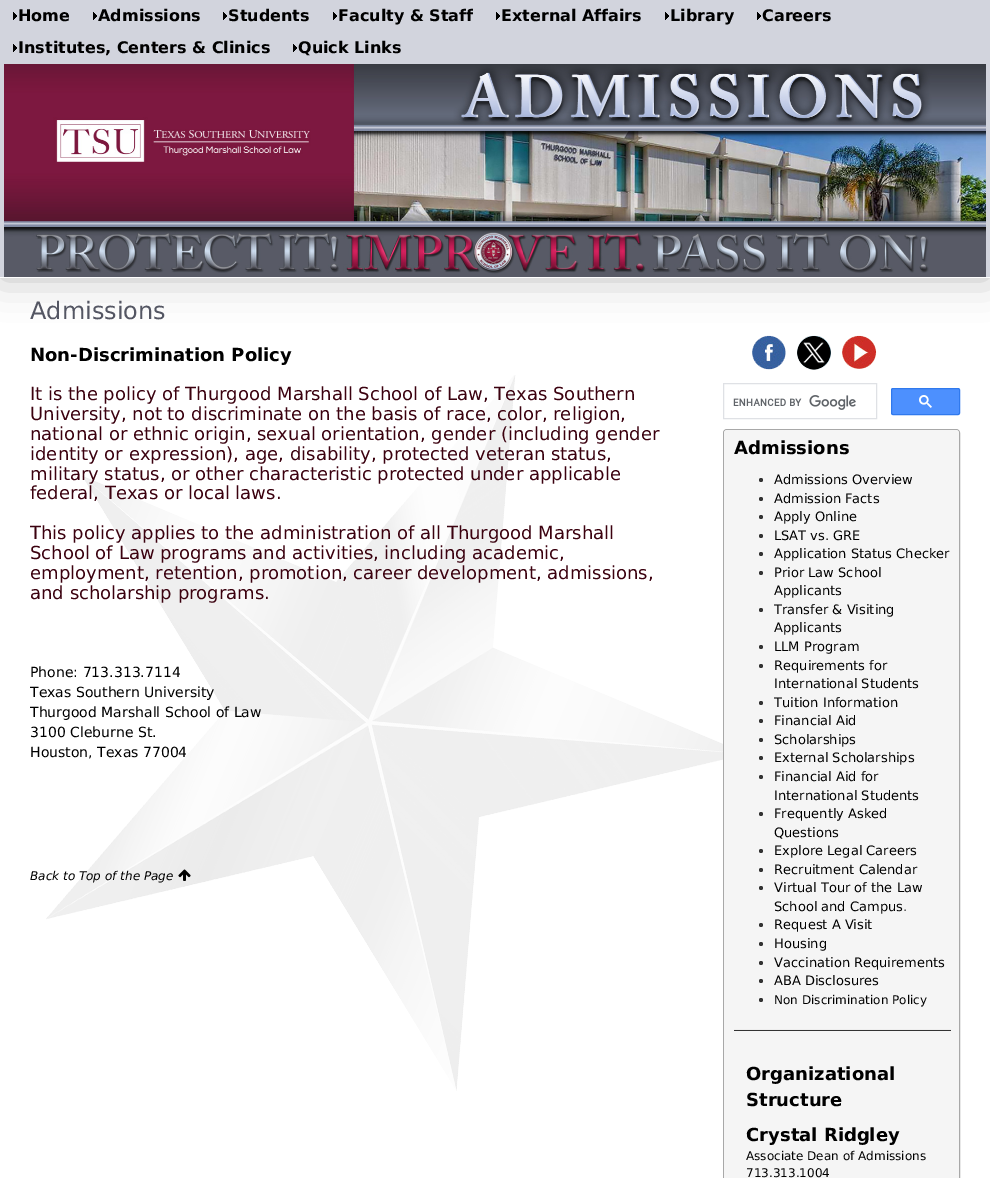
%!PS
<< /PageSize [990 1178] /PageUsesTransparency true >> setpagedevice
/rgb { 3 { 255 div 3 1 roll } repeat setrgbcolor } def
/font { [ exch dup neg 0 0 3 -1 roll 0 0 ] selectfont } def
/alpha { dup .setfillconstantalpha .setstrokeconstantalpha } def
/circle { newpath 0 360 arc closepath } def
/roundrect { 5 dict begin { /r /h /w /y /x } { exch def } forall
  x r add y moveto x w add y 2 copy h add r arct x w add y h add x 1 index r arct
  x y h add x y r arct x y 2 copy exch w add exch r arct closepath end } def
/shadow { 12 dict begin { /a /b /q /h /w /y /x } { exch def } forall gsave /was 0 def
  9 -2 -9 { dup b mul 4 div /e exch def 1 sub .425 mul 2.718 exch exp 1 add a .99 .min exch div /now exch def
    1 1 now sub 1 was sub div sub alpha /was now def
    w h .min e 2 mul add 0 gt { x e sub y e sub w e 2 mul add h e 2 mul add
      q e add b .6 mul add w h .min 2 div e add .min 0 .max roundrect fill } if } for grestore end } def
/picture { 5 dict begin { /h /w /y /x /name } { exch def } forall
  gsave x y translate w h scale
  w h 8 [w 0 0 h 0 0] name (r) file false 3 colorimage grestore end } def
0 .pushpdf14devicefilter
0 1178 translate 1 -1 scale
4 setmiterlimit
255 255 255 rgb
0 0 990 1178 rectfill
(img/1.rgb) 46 375 700 716 picture
(img/5.rgb) 752 335 125 35 picture
0 0 0 rgb
0 0 990 278 0 20 0.25 shadow
210 212 221 rgb
0 0 990 277 rectfill
255 255 255 rgb
0 277 990 1 rectfill
(img/2.rgb) 13 12 4 8 picture
(img/2.rgb) 93 12 4 8 picture
(img/2.rgb) 223 12 4 8 picture
(img/2.rgb) 333 12 4 8 picture
(img/2.rgb) 496 12 4 8 picture
(img/2.rgb) 665 12 4 8 picture
(img/2.rgb) 757 12 4 8 picture
(img/2.rgb) 13 44 4 8 picture
(img/2.rgb) 293 44 4 8 picture
(img/3.rgb) 4 64 982 213 picture
(img/4.rgb) 178 869 13 12 picture
223 225 229 rgb
723.5 383.5 153 35 rectstroke
(img/6.rgb) 733 395 123 15 picture
77 144 254 rgb
891.5 388.5 68 26 1.5 roundrect gsave fill grestore
48 121 237 rgb
stroke
(img/7.rgb) 919 395 13 13 picture
168 168 168 rgb
723.5 429.5 236 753 3.5 roundrect stroke
245 245 245 rgb
727 430 moveto 956 430 lineto 957.5 430 959 431.5 959 433 curveto 959 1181 lineto 724 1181 lineto 724 433 lineto 724 431.5 725.5 430 727 430 curveto closepath fill
51 51 51 rgb
761 480 2 circle fill
761 499 2 circle fill
761 517 2 circle fill
761 536 2 circle fill
761 554 2 circle fill
761 573 2 circle fill
761 610 2 circle fill
761 647 2 circle fill
761 666 2 circle fill
761 703 2 circle fill
761 721 2 circle fill
761 740 2 circle fill
761 758 2 circle fill
761 777 2 circle fill
761 814 2 circle fill
761 851 2 circle fill
761 870 2 circle fill
761 888 2 circle fill
761 925 2 circle fill
761 944 2 circle fill
761 963 2 circle fill
761 981 2 circle fill
761 1000 2 circle fill
734 1030 217 1 rectfill
238 238 238 rgb
734 1029 217 1 rectfill
/DejaVuSans-Bold 16 font
0 0 0 rgb
[
  [(Home) 18 21]
  [(Admissions) 98 21]
  [(Students) 228 21]
  [(Faculty & Staff) 338 21]
  [(External Affairs) 501 21]
  [(Library) 670 21]
  [(Careers) 762 21]
  [(Institutes, Centers & Clinics) 18 53]
  [(Quick Links) 298 53]
] { aload pop moveto show } forall
/DejaVuSans-Regular 24 font
84 86 99 rgb
30 319 moveto (Admissions) show
/DejaVuSans-Bold 18 font
0 0 0 rgb
30 361 moveto (Non-Discrimination Policy) show
/DejaVuSans-Regular 18 font
59 1 15 rgb
[
  [(It is the policy of Thurgood Marshall School of Law, Texas Southern) 30 400]
  [(University, not to discriminate on the basis of race, color, religion,) 30 420]
  [(national or ethnic origin, sexual orientation, gender \(including gender) 30 440]
  [(identity or expression\), age, disability, protected veteran status,) 30 460]
  [(military status, or other characteristic protected under applicable) 30 480]
  [(federal, Texas or local laws.) 30 499]
  [(This policy applies to the administration of all Thurgood Marshall) 30 539]
  [(School of Law programs and activities, including academic,) 30 559]
  [(employment, retention, promotion, career development, admissions,) 30 579]
  [(and scholarship programs.) 30 599]
] { aload pop moveto show } forall
/DejaVuSans-Regular 14 font
0 0 0 rgb
[
  [(Phone: 713.313.7114) 30 677]
  [(Texas Southern University) 30 697]
  [(Thurgood Marshall School of Law) 30 717]
  [(3100 Cleburne St.) 30 737]
  [(Houston, Texas 77004) 30 757]
] { aload pop moveto show } forall
/DejaVuSans-Italic 12 font
30 880 moveto (Back to Top of the Page) show
/DejaVuSans-Bold 18 font
734 454 moveto (Admissions) show
/DejaVuSans-Regular 13 font
[
  [(Admissions Overview) 774 484]
  [(Admission Facts) 774 503]
  [(Apply Online) 774 521]
  [(LSAT vs. GRE) 774 540]
  [(Application Status Checker) 774 558]
  [(Prior Law School) 774 577]
  [(Applicants) 774 595]
  [(Transfer & Visiting) 774 614]
  [(Applicants) 774 632]
  [(LLM Program) 774 651]
  [(Requirements for) 774 670]
  [(International Students) 774 688]
  [(Tuition Information) 774 707]
  [(Financial Aid) 774 725]
  [(Scholarships) 774 744]
  [(External Scholarships) 774 762]
  [(Financial Aid for) 774 781]
  [(International Students) 774 800]
  [(Frequently Asked) 774 818]
  [(Questions) 774 837]
  [(Explore Legal Careers) 774 855]
  [(Recruitment Calendar) 774 874]
  [(Virtual Tour of the Law) 774 892]
  [(School and Campus) 774 911]
] { aload pop moveto show } forall
51 51 51 rgb
903 911 moveto (.) show
0 0 0 rgb
[
  [(Request A Visit) 774 929]
  [(Housing) 774 948]
  [(Vaccination Requirements) 774 967]
  [(ABA Disclosures) 774 985]
] { aload pop moveto show } forall
/DejaVuSans-Regular 12 font
774 1004 moveto (Non Discrimination Policy) show
/DejaVuSans-Bold 18 font
[
  [(Organizational) 746 1080]
  [(Structure) 746 1106]
  [(Crystal Ridgley) 746 1141]
] { aload pop moveto show } forall
/DejaVuSans-Regular 12 font
746 1160 moveto (Associate Dean of Admissions) show
746 1177 moveto (713.313.1004) show
.poppdf14devicefilter showpage
